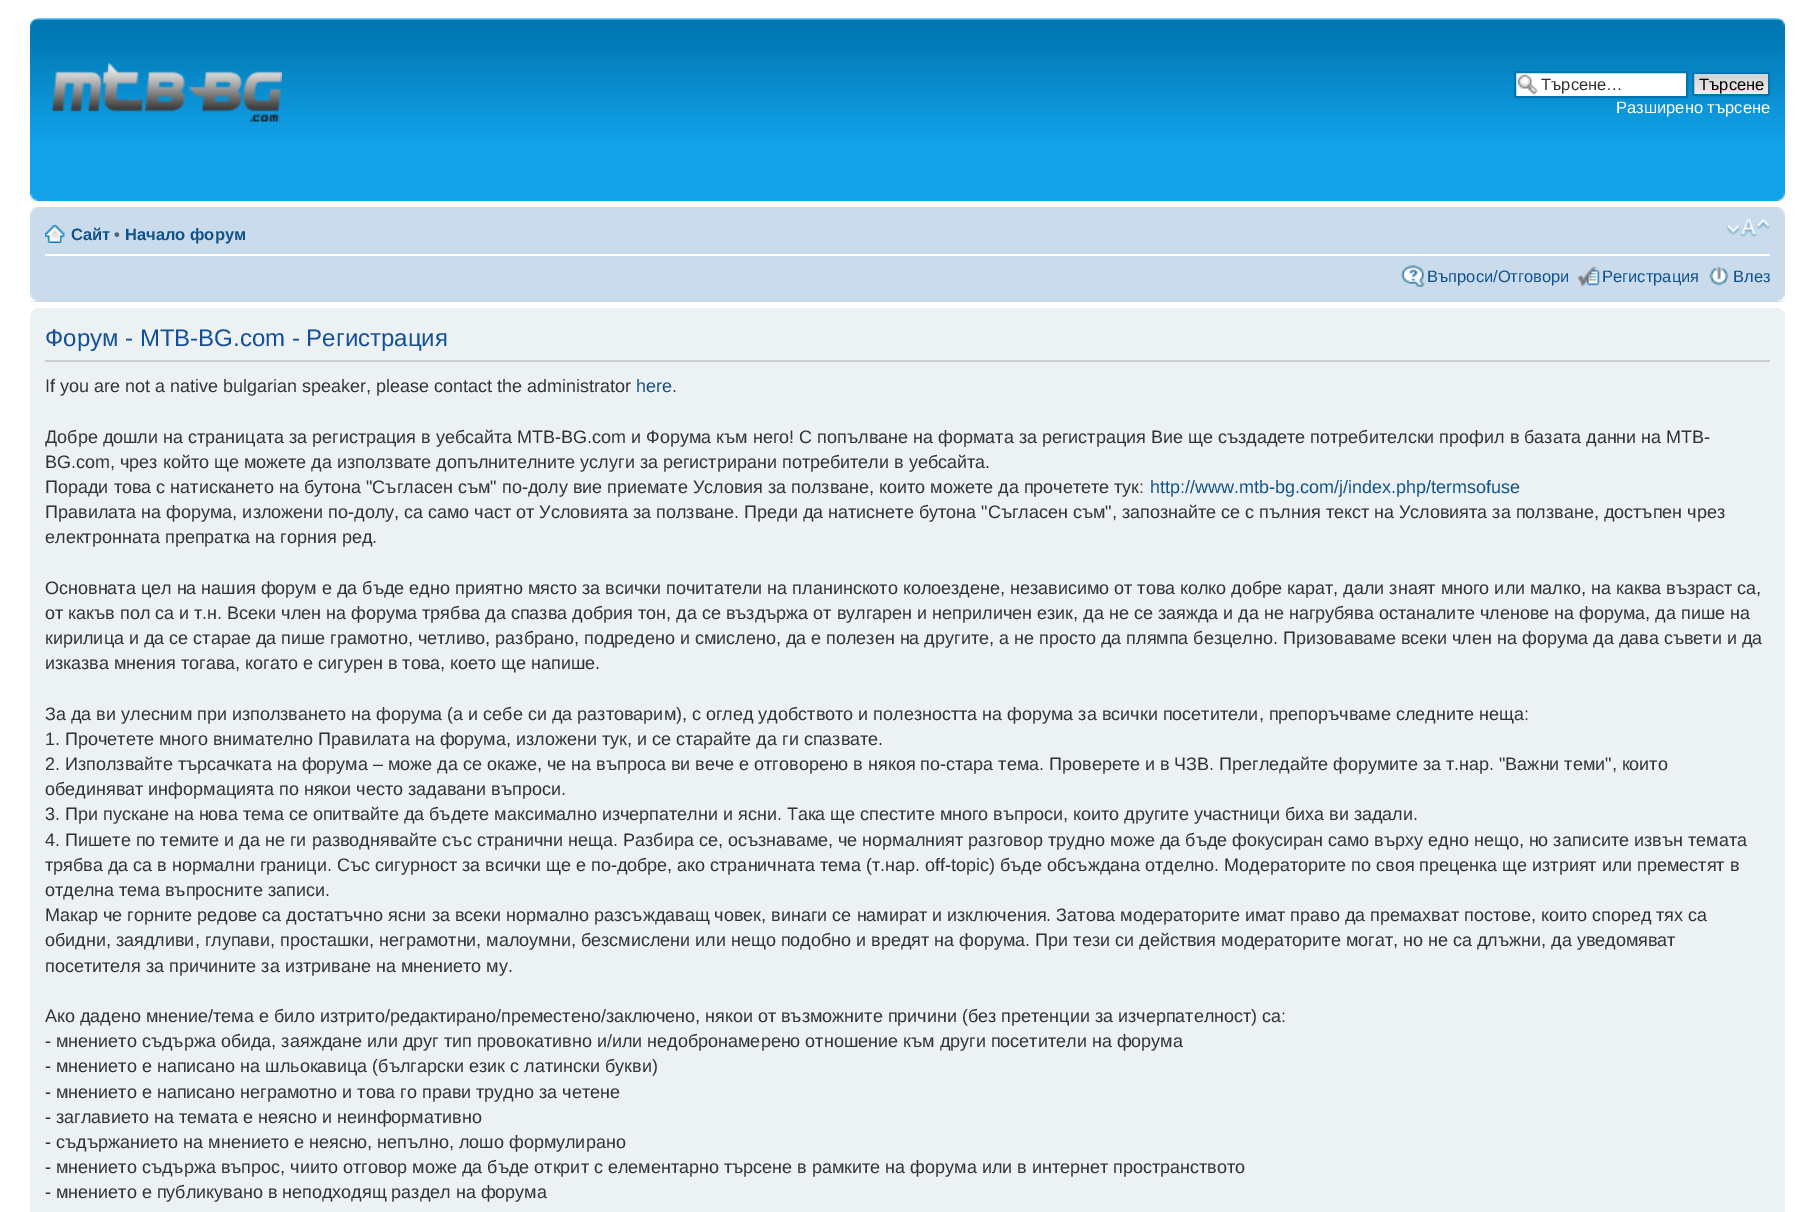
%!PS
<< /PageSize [1815 1212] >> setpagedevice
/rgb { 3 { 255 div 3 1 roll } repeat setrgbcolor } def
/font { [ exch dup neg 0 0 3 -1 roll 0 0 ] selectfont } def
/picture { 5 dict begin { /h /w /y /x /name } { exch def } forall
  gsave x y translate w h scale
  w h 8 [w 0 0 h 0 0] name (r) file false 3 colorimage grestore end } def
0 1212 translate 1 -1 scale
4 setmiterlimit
255 255 255 rgb
0 0 1815 1212 rectfill
18 163 235 rgb
30 141 1755 60 rectfill
(img/1.rgb) 30 18 1755 123 picture
(img/2.rgb) 30 18 8 8 picture
(img/3.rgb) 1777 18 8 8 picture
(img/4.rgb) 52 62 230 60 picture
255 255 255 rgb
1516 73 170 23 rectfill
(img/5.rgb) 1517 74 21 21 picture
0 117 176 rgb
2 setlinewidth
1515 72 172 25 rectstroke
250 250 250 rgb
1694 74 74 1 rectfill
(img/6.rgb) 1694 75 74 19 picture
0 117 176 rgb
1693 73 76 22 rectstroke
(img/7.rgb) 30 193 8 8 picture
(img/8.rgb) 1777 193 8 8 picture
202 220 235 rgb
30 207 1755 95 rectfill
(img/9.rgb) 30 207 8 8 picture
(img/10.rgb) 1777 207 8 8 picture
255 255 255 rgb
45 254 1725 2 rectfill
(img/11.rgb) 45 225 20 18 picture
(img/12.rgb) 1726 218 44 20 picture
(img/13.rgb) 1401 265 24 22 picture
(img/14.rgb) 1577 266 23 21 picture
(img/15.rgb) 1709 266 20 20 picture
(img/16.rgb) 30 294 8 8 picture
(img/17.rgb) 1777 294 8 8 picture
236 241 243 rgb
30 308 1755 904 rectfill
(img/18.rgb) 30 308 7 7 picture
(img/19.rgb) 1778 308 7 7 picture
204 204 204 rgb
45 360 1725 2 rectfill
/LiberationSans-Regular 16.5 font
51 51 51 rgb
1541 90 moveto (Търсене…) show
0 0 0 rgb
1699 90 moveto (Търсене) show
255 255 255 rgb
1616 113 moveto (Разширено търсене) show
/LiberationSans-Bold 16.5 font
16 82 137 rgb
71 240 moveto (Сайт) show
83 100 130 rgb
114 240 moveto (•) show
16 82 137 rgb
125 240 moveto (Начало форум) show
/LiberationSans-Regular 16.5 font
[
  [(Въпроси/Отговори) 1427 282]
  [(Регистрация) 1602 282]
  [(Влез) 1733 282]
] { aload pop moveto show } forall
/LiberationSans-Regular 24 font
17 80 152 rgb
45 346 moveto (Форум - MTB-BG.com - Регистрация) show
/LiberationSans-Regular 18 font
51 51 51 rgb
45 392 moveto (If you are not a native bulgarian speaker, please contact the administrator) show
16 82 137 rgb
636 392 moveto (here) show
51 51 51 rgb
[
  [(.) 672 392]
  [(Добре дошли на страницата за регистрация в уебсайта MTB-BG.com и Форума към него! С попълване на формата за регистрация Вие ще създадете потребителски профил в базата данни на MTB-) 45 443]
  [(BG.com, чрез който ще можете да използвате допълнителните услуги за регистрирани потребители в уебсайта.) 45 468]
  [(Поради това с натискането на бутона "Съгласен съм" по-долу вие приемате Условия за ползване, които можете да прочетете тук:) 45 493]
] { aload pop moveto show } forall
16 82 137 rgb
1150 493 moveto (http://www.mtb-bg.com/j/index.php/termsofuse) show
51 51 51 rgb
[
  [(Правилата на форума, изложени по-долу, са само част от Условията за ползване. Преди да натиснете бутона "Съгласен съм", запознайте се с пълния текст на Условията за ползване, достъпен чрез) 45 518]
  [(електронната препратка на горния ред.) 45 543]
  [(Основната цел на нашия форум е да бъде едно приятно място за всички почитатели на планинското колоездене, независимо от това колко добре карат, дали знаят много или малко, на каква възраст са,) 45 594]
  [(от какъв пол са и т.н. Всеки член на форума трябва да спазва добрия тон, да се въздържа от вулгарен и неприличен език, да не се заяжда и да не нагрубява останалите членове на форума, да пише на) 45 619]
  [(кирилица и да се старае да пише грамотно, четливо, разбрано, подредено и смислено, да е полезен на другите, а не просто да плямпа безцелно. Призоваваме всеки член на форума да дава съвети и да) 45 644]
  [(изказва мнения тогава, когато е сигурен в това, което ще напише.) 45 669]
  [(За да ви улесним при използването на форума \(а и себе си да разтоварим\), с оглед удобството и полезността на форума за всички посетители, препоръчваме следните неща:) 45 720]
  [(1. Прочетете много внимателно Правилата на форума, изложени тук, и се старайте да ги спазвате.) 45 745]
  [(2. Използвайте търсачката на форума – може да се окаже, че на въпроса ви вече е отговорено в някоя по-стара тема. Проверете и в ЧЗВ. Прегледайте форумите за т.нар. "Важни теми", които) 45 770]
  [(обединяват информацията по някои често задавани въпроси.) 45 795]
  [(3. При пускане на нова тема се опитвайте да бъдете максимално изчерпателни и ясни. Така ще спестите много въпроси, които другите участници биха ви задали.) 45 820]
  [(4. Пишете по темите и да не ги разводнявайте със странични неща. Разбира се, осъзнаваме, че нормалният разговор трудно може да бъде фокусиран само върху едно нещо, но записите извън темата) 45 846]
  [(трябва да са в нормални граници. Със сигурност за всички ще е по-добре, ако страничната тема \(т.нар. off-topic\) бъде обсъждана отделно. Модераторите по своя преценка ще изтрият или преместят в) 45 871]
  [(отделна тема въпросните записи.) 45 896]
  [(Макар че горните редове са достатъчно ясни за всеки нормално разсъждаващ човек, винаги се намират и изключения. Затова модераторите имат право да премахват постове, които според тях са) 45 921]
  [(обидни, заядливи, глупави, просташки, неграмотни, малоумни, безсмислени или нещо подобно и вредят на форума. При тези си действия модераторите могат, но не са длъжни, да уведомяват) 45 946]
  [(посетителя за причините за изтриване на мнението му.) 45 972]
  [(Ако дадено мнение/тема е било изтрито/редактирано/преместено/заключено, някои от възможните причини \(без претенции за изчерпателност\) са:) 45 1022]
  [(- мнението съдържа обида, заяждане или друг тип провокативно и/или недобронамерено отношение към други посетители на форума) 45 1047]
  [(- мнението е написано на шльокавица \(български език с латински букви\)) 45 1072]
  [(- мнението е написано неграмотно и това го прави трудно за четене) 45 1098]
  [(- заглавието на темата е неясно и неинформативно) 45 1123]
  [(- съдържанието на мнението е неясно, непълно, лошо формулирано) 45 1148]
  [(- мнението съдържа въпрос, чиито отговор може да бъде открит с елементарно търсене в рамките на форума или в интернет пространството) 45 1173]
  [(- мнението е публикувано в неподходящ раздел на форума) 45 1198]
] { aload pop moveto show } forall
showpage
